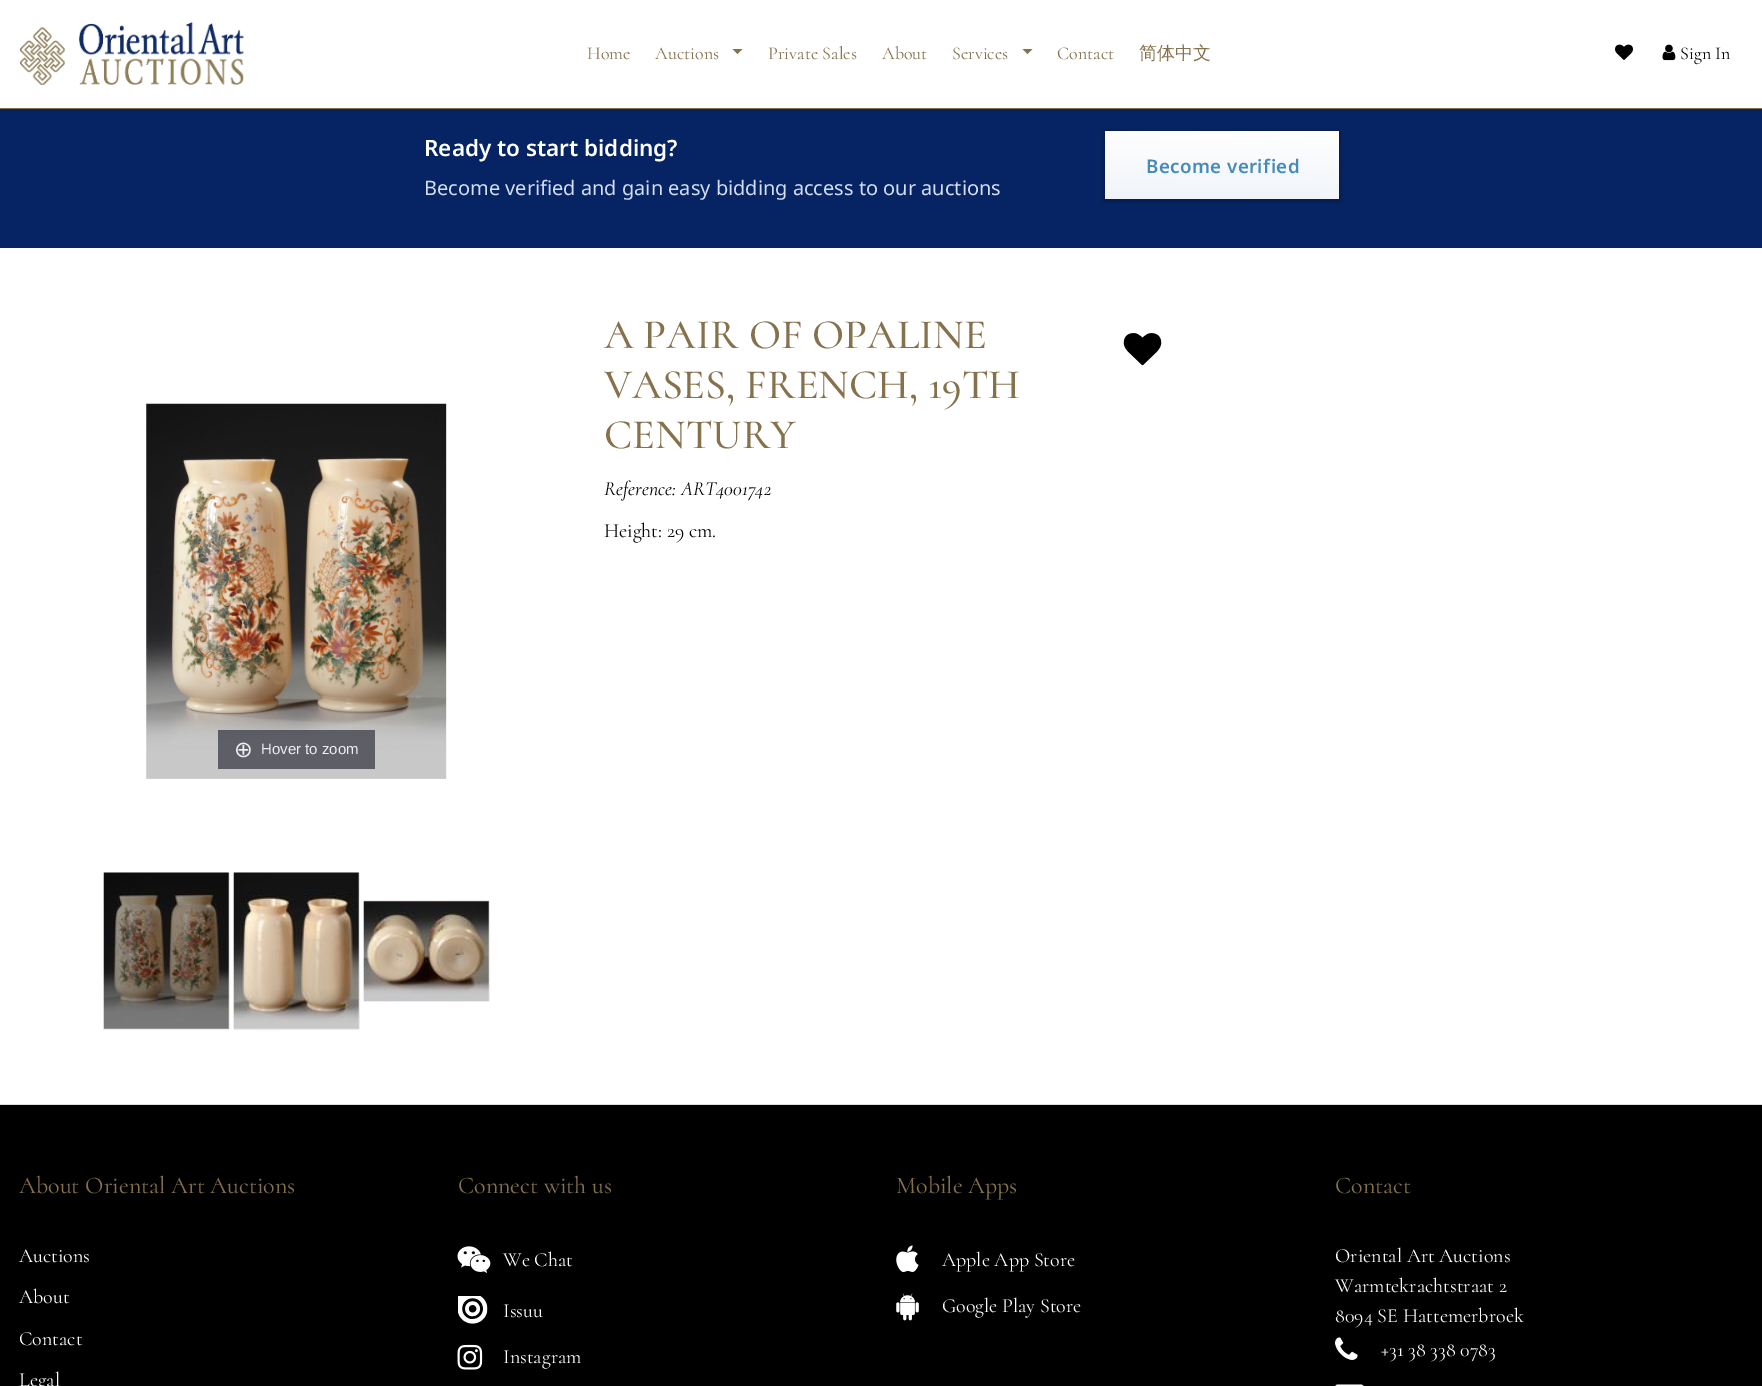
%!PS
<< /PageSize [1762 1386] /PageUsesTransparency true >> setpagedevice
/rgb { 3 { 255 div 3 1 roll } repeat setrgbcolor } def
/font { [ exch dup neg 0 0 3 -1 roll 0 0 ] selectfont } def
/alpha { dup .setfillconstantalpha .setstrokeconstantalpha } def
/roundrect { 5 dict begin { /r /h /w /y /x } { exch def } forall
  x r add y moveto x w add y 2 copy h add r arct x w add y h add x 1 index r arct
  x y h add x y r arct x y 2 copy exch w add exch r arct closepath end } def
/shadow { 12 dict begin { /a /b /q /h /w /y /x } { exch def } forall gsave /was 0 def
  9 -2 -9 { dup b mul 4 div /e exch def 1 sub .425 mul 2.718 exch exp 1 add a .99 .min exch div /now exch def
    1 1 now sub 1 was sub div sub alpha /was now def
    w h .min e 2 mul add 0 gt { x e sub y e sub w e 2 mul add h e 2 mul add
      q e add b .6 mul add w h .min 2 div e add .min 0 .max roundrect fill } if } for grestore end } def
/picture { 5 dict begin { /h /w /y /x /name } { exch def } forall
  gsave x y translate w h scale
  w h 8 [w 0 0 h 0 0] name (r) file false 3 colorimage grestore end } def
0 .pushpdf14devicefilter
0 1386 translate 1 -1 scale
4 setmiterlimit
255 255 255 rgb
0 0 1762 1386 rectfill
133 114 77 rgb
0 108 1762 1 rectfill
(img/1.rgb) 20 22 224 63 picture
732.5 49 moveto 742.5 49 lineto 737.5 54 lineto closepath fill
1022.5 49 moveto 1032.5 49 lineto 1027.5 54 lineto closepath fill
(img/2.rgb) 1615 44 18 16 picture
(img/3.rgb) 1662 44 14 17 picture
6 36 100 rgb
0 109 1762 139 rectfill
0 0 0 rgb
1104 131 236 70 0 2.5 0.32 shadow
gsave 1105 131 moveto 1339 131 lineto 1339 199 lineto 1105 199 lineto closepath clip newpath
<< /ShadingType 2 /ColorSpace /DeviceRGB /Coords [1222 129 1221 201] /Extend [true true] /Function << /FunctionType 2 /Domain [0 1] /C0 [1 1 1] /C1 [0.941 0.957 0.98] /N 1 >> >> shfill grestore
(img/4.rgb) 1123 333 39 33 picture
(img/5.rgb) 146 403 301 376 picture
0.7 alpha
49 51 61 rgb
218 730 157 39 rectfill
1 alpha
0 0 0 rgb
104 873 125 156 0 0.5 0.3 shadow
(img/6.rgb) 103 872 126 157 picture
234 873 125 156 0 0.5 0.3 shadow
(img/7.rgb) 233 872 126 157 picture
364 901 125 100 0 0.5 0.3 shadow
(img/8.rgb) 363 901 126 101 picture
0 1105 1762 281 rectfill
221 221 221 rgb
0 1104 1762 1 rectfill
(img/9.rgb) 457 1246 34 27 picture
(img/10.rgb) 458 1296 30 28 picture
(img/11.rgb) 457 1344 26 26 picture
(img/12.rgb) 896 1245 23 27 picture
(img/13.rgb) 896 1293 23 28 picture
(img/14.rgb) 1335 1337 23 23 picture
(img/15.rgb) 1335 1384 29 2 picture
/Cormorant-Regular 18 font
133 114 77 rgb
[
  [(Home) 587 59]
  [(Auctions) 655 59]
  [(Private Sales) 768 59]
  [(About) 882 59]
  [(Services) 952 59]
  [(Contact) 1057 59]
] { aload pop moveto show } forall
/WenQuanYiZenHei-Medium 18 font
1139 59 moveto (简体中文) show
/Cormorant-Regular 18 font
0 0 0 rgb
1680 59 moveto (Sign In) show
/NotoSans-SemiBold 22.5 font
255 255 255 rgb
424 156 moveto (Ready to start bidding?) show
/NotoSans-Regular 20 font
212 222 240 rgb
424 195 moveto (Become verified and gain easy bidding access to our auctions) show
/NotoSans-SemiBold 18.75 font
70 139 182 rgb
1146 173 moveto 0.4 0 (Become verified) ashow
/Cormorant-Medium 42 font
133 114 77 rgb
[
  [(A PAIR OF OPALINE) 604 348]
  [(VASES, FRENCH, 19TH) 604 398]
  [(CENTURY) 604 448]
] { aload pop moveto show } forall
/Cormorant-Italic 20 font
0 0 0 rgb
604 495 moveto (Reference: ART4001742) show
/Cormorant-Regular 20 font
604 537 moveto (Height: 29 cm.) show
/DejaVuSans-Regular 22.5 font
238 238 238 rgb
234 757 moveto (⊕) show
/LiberationSans-Regular 15 font
261 754 moveto (Hover to zoom) show
/Cormorant-Regular 24 font
133 114 77 rgb
19 1193 moveto (About Oriental Art Auctions) show
/Cormorant-Regular 20 font
255 255 255 rgb
[
  [(Auctions) 19 1262]
  [(About) 19 1303]
  [(Contact) 19 1345]
  [(Legal) 19 1386]
] { aload pop moveto show } forall
/Cormorant-Regular 24 font
133 114 77 rgb
458 1193 moveto (Connect with us) show
/Cormorant-Regular 20 font
255 255 255 rgb
[
  [(We Chat) 503 1266]
  [(Issuu) 503 1317]
  [(Instagram) 503 1363]
] { aload pop moveto show } forall
/Cormorant-Regular 24 font
133 114 77 rgb
896 1193 moveto (Mobile Apps) show
/Cormorant-Regular 20 font
255 255 255 rgb
942 1266 moveto (Apple App Store) show
942 1312 moveto (Google Play Store) show
/Cormorant-Regular 24 font
133 114 77 rgb
1335 1193 moveto (Contact) show
/Cormorant-Regular 20 font
255 255 255 rgb
[
  [(Oriental Art Auctions) 1335 1262]
  [(Warmtekrachtstraat 2) 1335 1292]
  [(8094 SE Hattemerbroek) 1335 1322]
  [(+31 38 338 0783) 1381 1356]
] { aload pop moveto show } forall
.poppdf14devicefilter showpage
